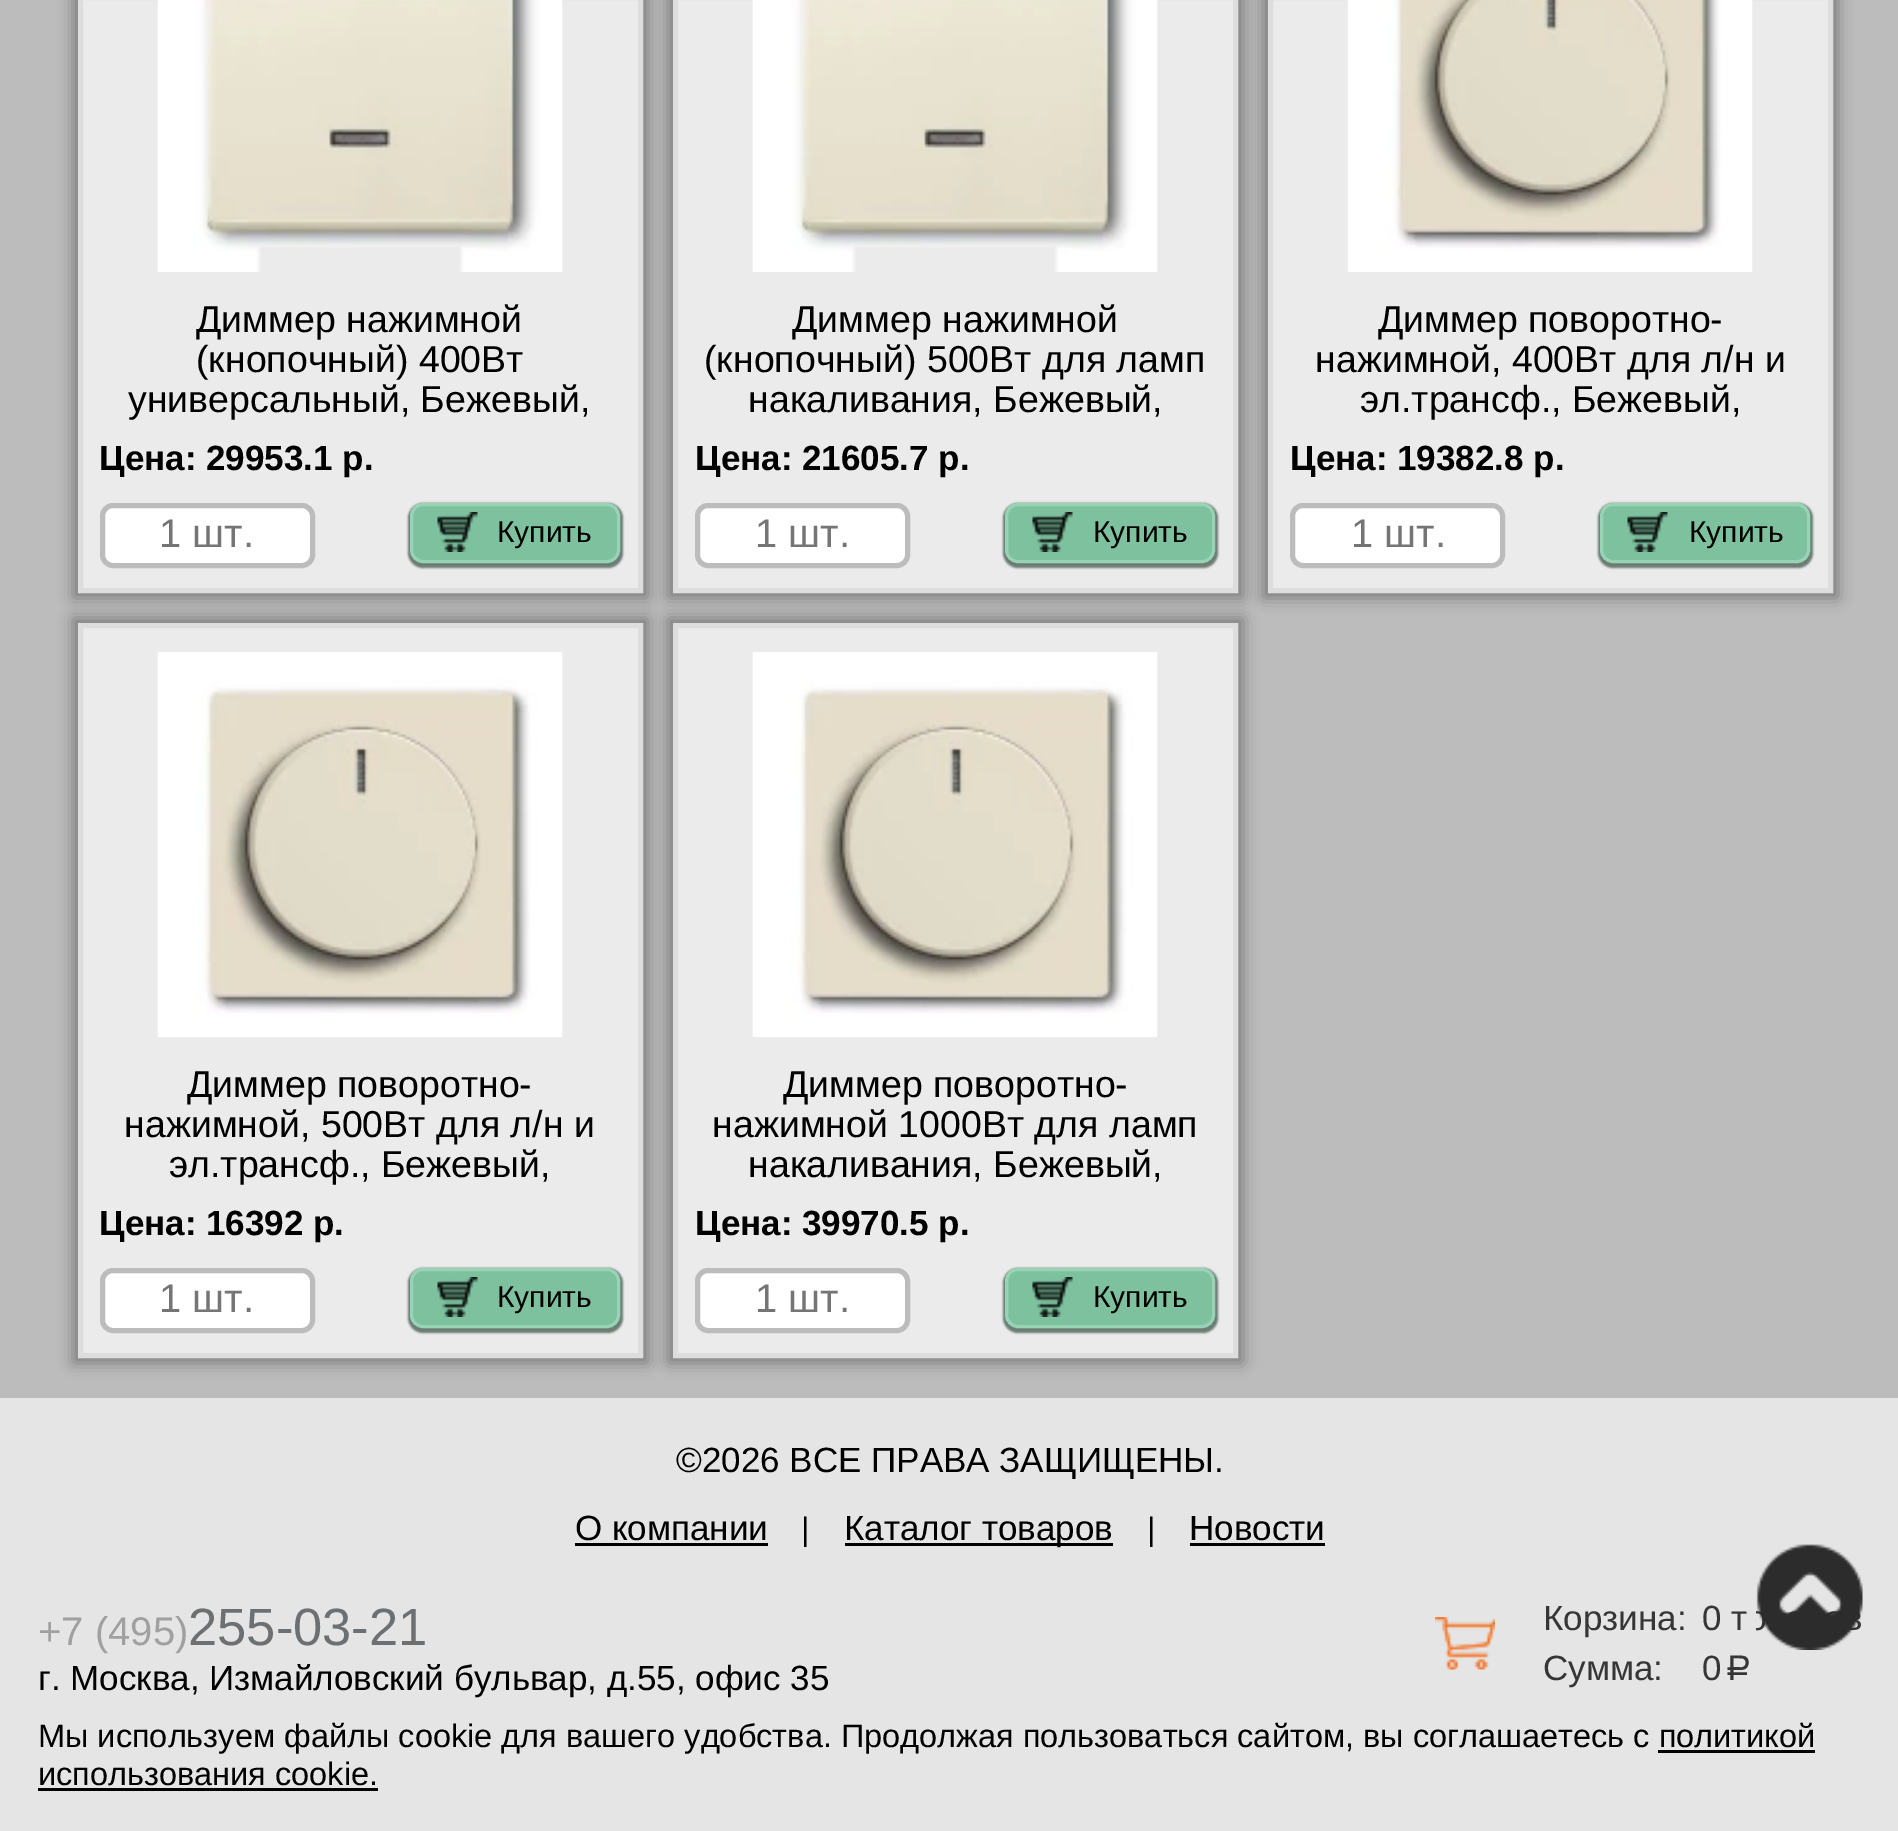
%!PS
<< /PageSize [1898 1831] /PageUsesTransparency true >> setpagedevice
/rgb { 3 { 255 div 3 1 roll } repeat setrgbcolor } def
/font { [ exch dup neg 0 0 3 -1 roll 0 0 ] selectfont } def
/alpha { dup .setfillconstantalpha .setstrokeconstantalpha } def
/roundrect { 5 dict begin { /r /h /w /y /x } { exch def } forall
  x r add y moveto x w add y 2 copy h add r arct x w add y h add x 1 index r arct
  x y h add x y r arct x y 2 copy exch w add exch r arct closepath end } def
/shadow { 12 dict begin { /a /b /q /h /w /y /x } { exch def } forall gsave /was 0 def
  9 -2 -9 { dup b mul 4 div /e exch def 1 sub .425 mul 2.718 exch exp 1 add a .99 .min exch div /now exch def
    1 1 now sub 1 was sub div sub alpha /was now def
    w h .min e 2 mul add 0 gt { x e sub y e sub w e 2 mul add h e 2 mul add
      q e add b .6 mul add w h .min 2 div e add .min 0 .max roundrect fill } if } for grestore end } def
/picture { 5 dict begin { /h /w /y /x /name } { exch def } forall
  gsave x y translate w h scale
  w h 8 [w 0 0 h 0 0] name (r) file false 3 colorimage grestore end } def
0 .pushpdf14devicefilter
0 1831 translate 1 -1 scale
4 setmiterlimit
188 188 188 rgb
0 0 1898 1831 rectfill
0 0 0 rgb
73 -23 575 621 0 7.5 0.34 shadow
235 235 235 rgb
80.5 -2.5 moveto 640.5 -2.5 lineto 640.5 590.5 lineto 80.5 590.5 lineto closepath gsave fill grestore
221 221 221 rgb
5 setlinewidth
stroke
(img/1.rgb) 157 0 406 272 picture
255 255 255 rgb
102.5 505.5 210 60 10.5 roundrect gsave fill grestore
188 188 188 rgb
stroke
104 122 113 rgb
408 503 215 65 15 1 1 shadow
125 193 159 rgb
411.5 504.5 207 57 11.5 roundrect gsave fill grestore
153 211 182 rgb
3 setlinewidth
stroke
(img/2.rgb) 437 512 41 40 picture
0 0 0 rgb
668 -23 575 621 0 7.5 0.34 shadow
235 235 235 rgb
675.5 -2.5 moveto 1235.5 -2.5 lineto 1235.5 590.5 lineto 675.5 590.5 lineto closepath gsave fill grestore
221 221 221 rgb
5 setlinewidth
stroke
(img/3.rgb) 752 0 406 272 picture
255 255 255 rgb
697.5 505.5 210 60 10.5 roundrect gsave fill grestore
188 188 188 rgb
stroke
104 122 113 rgb
1003 503 215 65 15 1 1 shadow
125 193 159 rgb
1006.5 504.5 207 57 11.5 roundrect gsave fill grestore
153 211 182 rgb
3 setlinewidth
stroke
(img/2.rgb) 1032 512 41 40 picture
0 0 0 rgb
1263 -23 575 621 0 7.5 0.34 shadow
235 235 235 rgb
1270.5 -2.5 moveto 1830.5 -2.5 lineto 1830.5 590.5 lineto 1270.5 590.5 lineto closepath gsave fill grestore
221 221 221 rgb
5 setlinewidth
stroke
(img/4.rgb) 1347 0 406 272 picture
255 255 255 rgb
1292.5 505.5 210 60 10.5 roundrect gsave fill grestore
188 188 188 rgb
stroke
104 122 113 rgb
1598 503 215 65 15 1 1 shadow
125 193 159 rgb
1601.5 504.5 207 57 11.5 roundrect gsave fill grestore
153 211 182 rgb
3 setlinewidth
stroke
(img/5.rgb) 1627 512 41 40 picture
0 0 0 rgb
73 618 575 745 0 7.5 0.34 shadow
235 235 235 rgb
80.5 625.5 moveto 640.5 625.5 lineto 640.5 1355.5 lineto 80.5 1355.5 lineto closepath gsave fill grestore
221 221 221 rgb
5 setlinewidth
stroke
(img/6.rgb) 157 652 406 385 picture
255 255 255 rgb
102.5 1270.5 210 60 10.5 roundrect gsave fill grestore
188 188 188 rgb
stroke
104 122 113 rgb
408 1268 215 65 15 1 1 shadow
125 193 159 rgb
411.5 1269.5 207 57 11.5 roundrect gsave fill grestore
153 211 182 rgb
3 setlinewidth
stroke
(img/2.rgb) 437 1277 41 40 picture
0 0 0 rgb
668 618 575 745 0 7.5 0.34 shadow
235 235 235 rgb
675.5 625.5 moveto 1235.5 625.5 lineto 1235.5 1355.5 lineto 675.5 1355.5 lineto closepath gsave fill grestore
221 221 221 rgb
5 setlinewidth
stroke
(img/7.rgb) 752 652 406 385 picture
255 255 255 rgb
697.5 1270.5 210 60 10.5 roundrect gsave fill grestore
188 188 188 rgb
stroke
104 122 113 rgb
1003 1268 215 65 15 1 1 shadow
125 193 159 rgb
1006.5 1269.5 207 57 11.5 roundrect gsave fill grestore
153 211 182 rgb
3 setlinewidth
stroke
(img/2.rgb) 1032 1277 41 40 picture
[
  [0 1398 1898 433 229 229 229]
  [575 1543 193 3 0 0 0]
  [845 1543 268 3 0 0 0]
  [1190 1543 135 3 0 0 0]
] { aload pop rgb rectfill } forall
(img/8.rgb) 1435 1617 60 53 picture
1658 1750 157 3 rectfill
38 1788 340 3 rectfill
(img/9.rgb) 1756 1544 107 106 picture
/LiberationSans-Regular 37.5 font
[
  [(Диммер нажимной) 196 332]
  [(\(кнопочный\) 400Вт) 196 372]
  [(универсальный, Бежевый,) 128 412]
] { aload pop moveto show } forall
/LiberationSans-Bold 35 font
99 470 moveto (Цена: 29953.1 р.) show
/LiberationSans-Regular 40 font
117 117 117 rgb
159 547 moveto (1 шт.) show
/LiberationSans-Regular 30 font
0 0 0 rgb
497 542 moveto (Купить) show
/LiberationSans-Regular 37.5 font
[
  [(Диммер нажимной) 792 332]
  [(\(кнопочный\) 500Вт для ламп) 704 372]
  [(накаливания, Бежевый,) 748 412]
] { aload pop moveto show } forall
/LiberationSans-Bold 35 font
695 470 moveto (Цена: 21605.7 р.) show
/LiberationSans-Regular 40 font
117 117 117 rgb
755 547 moveto (1 шт.) show
/LiberationSans-Regular 30 font
0 0 0 rgb
1093 542 moveto (Купить) show
/LiberationSans-Regular 37.5 font
[
  [(Диммер поворотно-) 1378 332]
  [(нажимной, 400Вт для л/н и) 1315 372]
  [(эл.трансф., Бежевый,) 1360 412]
] { aload pop moveto show } forall
/LiberationSans-Bold 35 font
1290 470 moveto (Цена: 19382.8 р.) show
/LiberationSans-Regular 40 font
117 117 117 rgb
1351 547 moveto (1 шт.) show
/LiberationSans-Regular 30 font
0 0 0 rgb
1689 542 moveto (Купить) show
/LiberationSans-Regular 37.5 font
[
  [(Диммер поворотно-) 187 1097]
  [(нажимной, 500Вт для л/н и) 124 1137]
  [(эл.трансф., Бежевый,) 169 1177]
] { aload pop moveto show } forall
/LiberationSans-Bold 35 font
99 1235 moveto (Цена: 16392 р.) show
/LiberationSans-Regular 40 font
117 117 117 rgb
159 1312 moveto (1 шт.) show
/LiberationSans-Regular 30 font
0 0 0 rgb
497 1307 moveto (Купить) show
/LiberationSans-Regular 37.5 font
[
  [(Диммер поворотно-) 783 1097]
  [(нажимной 1000Вт для ламп) 712 1137]
  [(накаливания, Бежевый,) 748 1177]
] { aload pop moveto show } forall
/LiberationSans-Bold 35 font
695 1235 moveto (Цена: 39970.5 р.) show
/LiberationSans-Regular 40 font
117 117 117 rgb
755 1312 moveto (1 шт.) show
/LiberationSans-Regular 30 font
0 0 0 rgb
1093 1307 moveto (Купить) show
/LiberationSans-Regular 35 font
676 1472 moveto (©2026 ВСЕ ПРАВА ЗАЩИЩЕНЫ.) show
575 1540 moveto (О компании) show
/LiberationSans-Regular 32.5 font
801 1540 moveto (|) show
/LiberationSans-Regular 35 font
844 1540 moveto (Каталог товаров) show
/LiberationSans-Regular 32.5 font
1147 1540 moveto (|) show
/LiberationSans-Regular 35 font
1189 1540 moveto (Новости) show
/LiberationSans-Regular 40 font
160 160 160 rgb
38 1645 moveto (+7 \(495\)) show
/LiberationSans-Regular 52.5 font
108 112 114 rgb
188 1645 moveto (255-03-21) show
/LiberationSans-Regular 35 font
0 0 0 rgb
38 1690 moveto (г. Москва, Измайловский бульвар, д.55, офис 35) show
54 54 54 rgb
[
  [(Корзина:) 1543 1630]
  [(0 т) 1702 1630]
  [(Сумма:) 1543 1680]
  [(0) 1702 1680]
] { aload pop moveto show } forall
/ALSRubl-Regular 35 font
1722 1680 moveto (a) show
/LiberationSans-Regular 32.5 font
0 0 0 rgb
38 1747 moveto (Мы используем файлы cookie для вашего удобства. Продолжая пользоваться сайтом, вы соглашаетесь с политикой) show
38 1785 moveto (использования cookie.) show
.poppdf14devicefilter showpage
